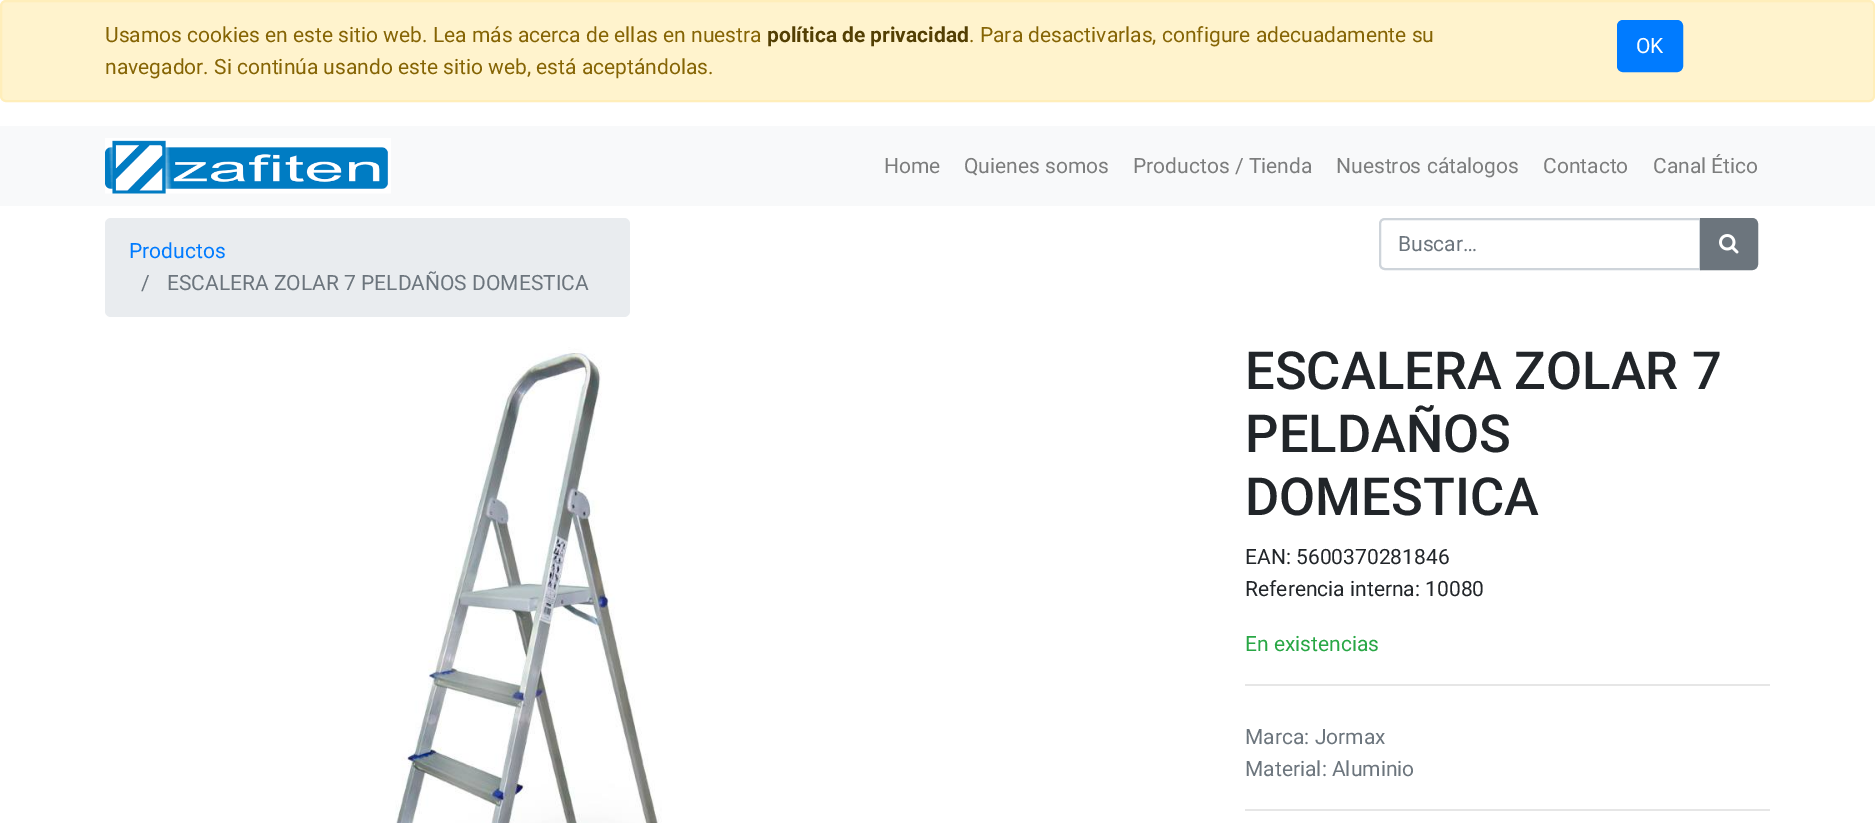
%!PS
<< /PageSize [1875 823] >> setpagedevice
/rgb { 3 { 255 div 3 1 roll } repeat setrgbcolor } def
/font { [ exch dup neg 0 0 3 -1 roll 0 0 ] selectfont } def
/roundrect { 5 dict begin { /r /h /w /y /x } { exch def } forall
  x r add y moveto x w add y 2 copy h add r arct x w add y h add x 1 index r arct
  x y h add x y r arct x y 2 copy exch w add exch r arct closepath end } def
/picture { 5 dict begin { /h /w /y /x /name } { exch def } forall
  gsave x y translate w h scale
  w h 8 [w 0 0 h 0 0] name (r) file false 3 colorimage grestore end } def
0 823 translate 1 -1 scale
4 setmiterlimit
255 255 255 rgb
0 0 1875 823 rectfill
255 243 205 rgb
1 1 1873 100 5 roundrect gsave fill grestore
255 238 186 rgb
2 setlinewidth
stroke
0 123 255 rgb
1618 21 64 50 5 roundrect gsave fill grestore
stroke
248 249 250 rgb
0 126 1875 80 rectfill
(img/1.rgb) 105 138 286 56 picture
233 236 239 rgb
105 218 525 99 6 roundrect fill
206 212 218 rgb
1385 219 moveto 1700 219 lineto 1700 269 lineto 1385 269 lineto 1382 269 1380 267 1380 264 curveto 1380 224 lineto 1380 221 1382 219 1385 219 curveto closepath stroke
108 117 125 rgb
1701 219 moveto 1752 219 lineto 1755 219 1757 221 1757 224 curveto 1757 264 lineto 1757 267 1755 269 1752 269 curveto 1701 269 lineto closepath gsave fill grestore
stroke
(img/2.rgb) 1719 234 20 20 picture
(img/3.rgb) 395 347 267 476 picture
230 230 230 rgb
1245 684 525 2 rectfill
1245 809 525 2 rectfill
/Roboto-Regular 21 font
133 100 4 rgb
105 42 moveto (Usamos cookies en este sitio web. Lea más acerca de ellas en nuestra) show
/Roboto-Bold 21 font
83 63 3 rgb
767 42 moveto (política de privacidad) show
/Roboto-Regular 21 font
133 100 4 rgb
969 42 moveto (. Para desactivarlas, configure adecuadamente su) show
105 74 moveto (navegador. Si continúa usando este sitio web, está aceptándolas.) show
255 255 255 rgb
1636 53 moveto (OK) show
124 125 125 rgb
[
  [(Home) 884 173]
  [(Quienes somos) 964 173]
  [(Productos / Tienda) 1133 173]
  [(Nuestros cátalogos) 1336 173]
  [(Contacto) 1543 173]
  [(Canal Ético) 1653 173]
] { aload pop moveto show } forall
0 123 255 rgb
129 258 moveto (Productos) show
108 117 125 rgb
[
  [(/) 141 290]
  [(ESCALERA ZOLAR 7 PELDAÑOS DOMESTICA) 167 290]
  [(Buscar…) 1398 251]
] { aload pop moveto show } forall
/Roboto-Medium 52.5 font
33 37 41 rgb
[
  [(ESCALERA ZOLAR 7) 1245 389]
  [(PELDAÑOS) 1245 452]
  [(DOMESTICA) 1245 515]
] { aload pop moveto show } forall
/Roboto-Regular 21 font
1245 564 moveto (EAN: 5600370281846) show
1245 596 moveto (Referencia interna: 10080) show
40 167 69 rgb
1245 651 moveto (En existencias) show
108 117 125 rgb
1245 744 moveto (Marca: Jormax) show
1245 776 moveto (Material: Aluminio) show
showpage
